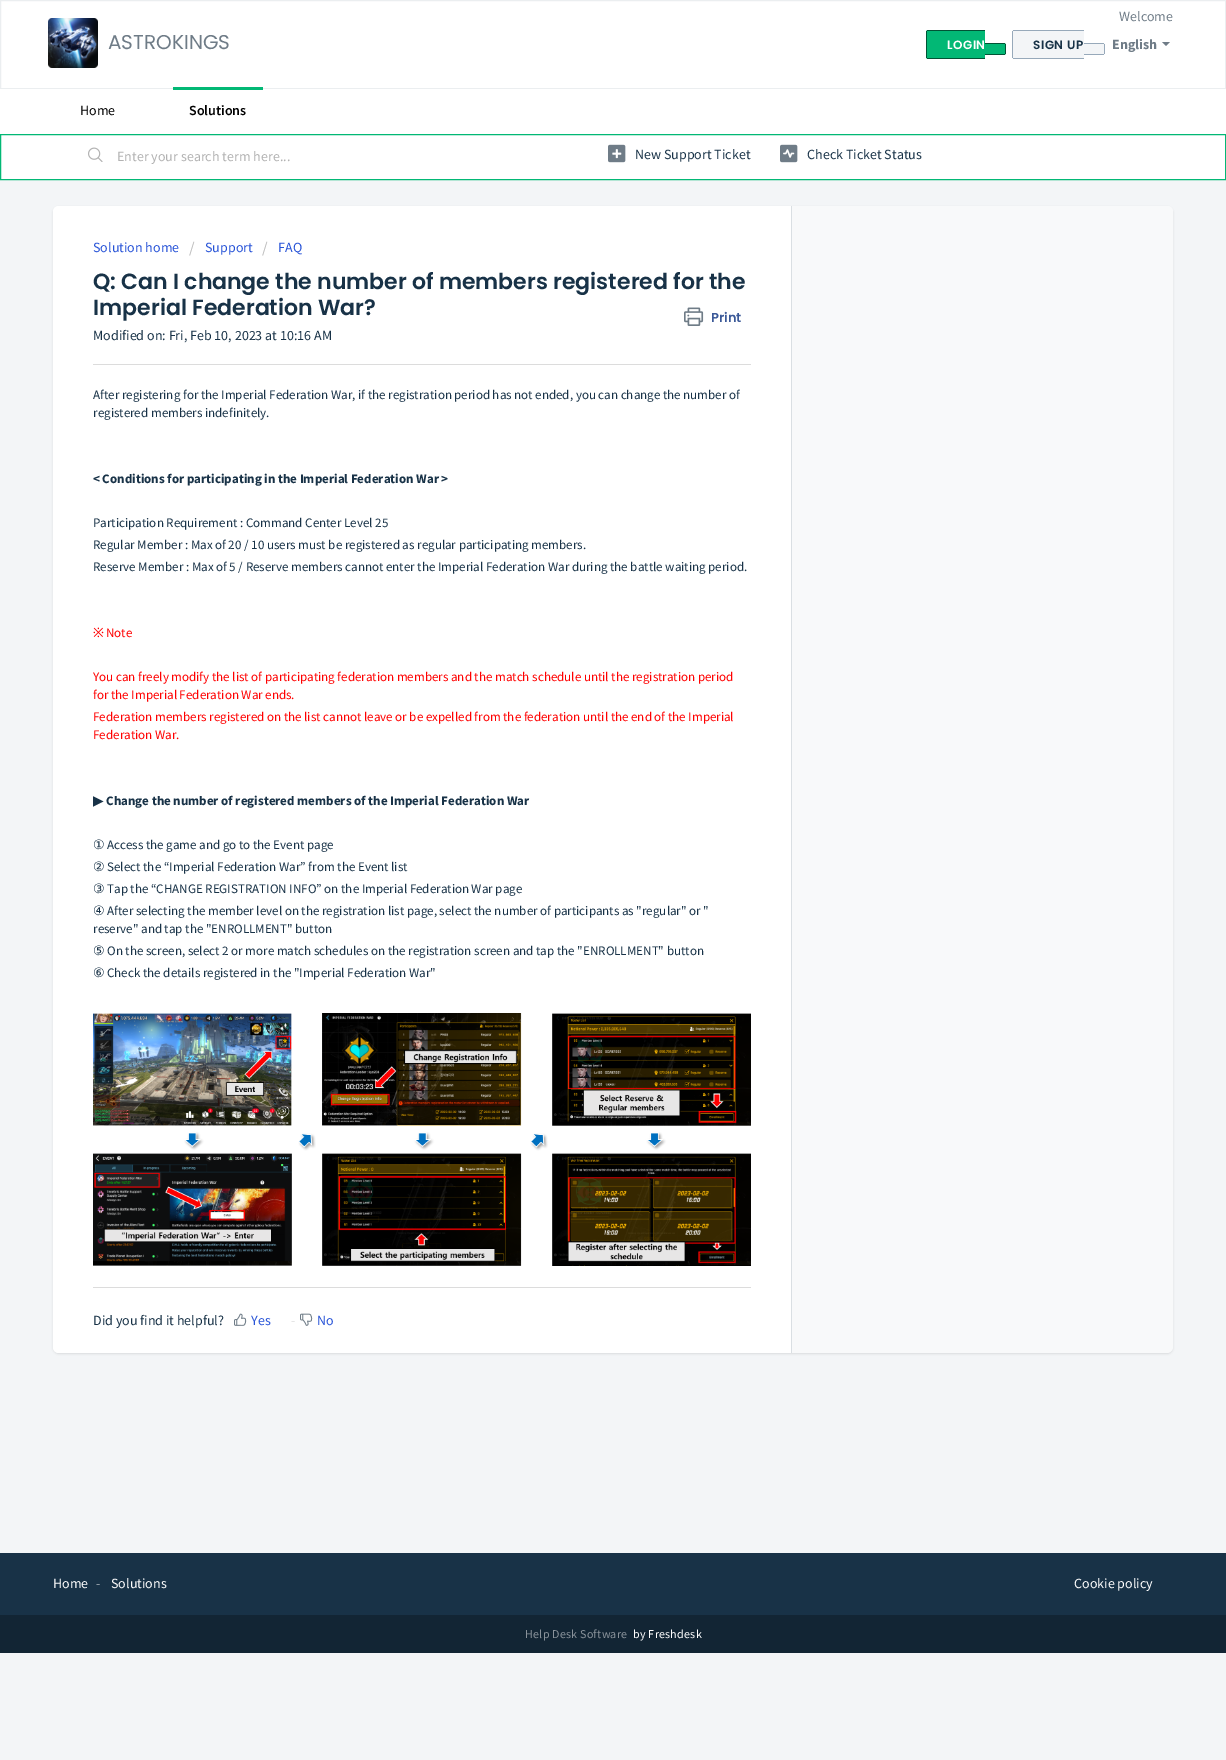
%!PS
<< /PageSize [1226 1760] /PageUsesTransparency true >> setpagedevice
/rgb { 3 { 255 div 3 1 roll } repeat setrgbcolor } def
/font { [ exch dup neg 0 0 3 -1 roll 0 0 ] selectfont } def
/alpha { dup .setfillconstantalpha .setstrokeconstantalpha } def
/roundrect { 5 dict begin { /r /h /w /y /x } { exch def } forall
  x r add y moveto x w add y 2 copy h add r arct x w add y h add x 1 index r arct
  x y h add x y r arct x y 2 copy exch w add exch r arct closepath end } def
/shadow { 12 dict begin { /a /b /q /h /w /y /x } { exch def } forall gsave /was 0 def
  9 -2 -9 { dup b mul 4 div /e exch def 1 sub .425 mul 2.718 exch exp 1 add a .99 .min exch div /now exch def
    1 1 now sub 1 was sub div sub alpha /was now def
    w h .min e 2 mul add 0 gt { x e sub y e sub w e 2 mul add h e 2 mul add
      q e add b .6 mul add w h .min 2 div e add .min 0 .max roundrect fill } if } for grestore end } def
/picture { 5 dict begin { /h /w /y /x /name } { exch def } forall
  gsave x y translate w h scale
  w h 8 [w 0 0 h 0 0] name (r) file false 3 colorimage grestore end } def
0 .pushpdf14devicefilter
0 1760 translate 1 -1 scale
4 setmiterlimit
243 245 247 rgb
0 0 1226 1760 rectfill
255 255 255 rgb
0.5 0.5 moveto 1225.5 0.5 lineto 1225.5 88.5 lineto 0.5 88.5 lineto closepath gsave fill grestore
235 238 240 rgb
stroke
(img/1.rgb) 48 18 50 50 picture
2 184 117 rgb
928 30 moveto 985 30 lineto 985 59 lineto 928 59 lineto 927 59 926 58 926 57 curveto 926 32 lineto 926 31 927 30 928 30 curveto closepath fill
[
  [927 30 58 1 1 83 53]
  [927 58 58 1 1 83 53]
  [926 31 1 27 1 83 53]
] { aload pop rgb rectfill } forall
2 184 117 rgb
985 43 moveto 1004 43 lineto 1005 43 1006 44 1006 45 curveto 1006 53 lineto 1006 54 1005 55 1004 55 curveto 985 55 lineto closepath fill
[
  [985 43 20 1 1 83 53]
  [1005 44 1 10 1 83 53]
  [985 54 20 1 1 83 53]
] { aload pop rgb rectfill } forall
243 245 247 rgb
1014 30 moveto 1084 30 lineto 1084 59 lineto 1014 59 lineto 1013 59 1012 58 1012 57 curveto 1012 32 lineto 1012 31 1013 30 1014 30 curveto closepath fill
[
  [1013 30 71 1 151 169 186]
  [1013 58 71 1 151 169 186]
  [1012 31 1 27 151 169 186]
] { aload pop rgb rectfill } forall
243 245 247 rgb
1084 43 moveto 1103 43 lineto 1104 43 1105 44 1105 45 curveto 1105 53 lineto 1105 54 1104 55 1103 55 curveto 1084 55 lineto closepath fill
[
  [1084 43 20 1 151 169 186]
  [1104 44 1 10 151 169 186]
  [1084 54 20 1 151 169 186]
] { aload pop rgb rectfill } forall
111 124 135 rgb
1162 42 moveto 1170 42 lineto 1166 46 lineto closepath fill
255 255 255 rgb
0 89 1226 45 rectfill
2 184 117 rgb
173 87 90 3 rectfill
255 255 255 rgb
0.5 134.5 moveto 1225.5 134.5 lineto 1225.5 179.5 lineto 0.5 179.5 lineto closepath gsave fill grestore
2 184 117 rgb
stroke
(img/2.rgb) 88 147 15 15 picture
(img/3.rgb) 608 144 18 19 picture
(img/4.rgb) 780 144 18 19 picture
63 63 68 rgb
53 207 1120 1147 6 1 0.15 shadow
248 249 250 rgb
53 206 1120 1147 6 roundrect fill
792 206 moveto 1167 206 lineto 1170.5 206 1173 208.5 1173 212 curveto 1173 220 lineto 1173 223.5 1170.5 226 1167 226 curveto 792 226 lineto closepath fill
255 255 255 rgb
59 206 moveto 792 206 lineto 792 1353 lineto 59 1353 lineto 55.5 1353 53 1350.5 53 1347 curveto 53 212 lineto 53 208.5 55.5 206 59 206 curveto closepath fill
218 223 227 rgb
791 206 1 1147 rectfill
(img/5.rgb) 684 307 20 19 picture
220 220 220 rgb
93 364 658 1 rectfill
(img/6.rgb) 93 1013 658 253 picture
93 1287 658 1 rectfill
(img/7.rgb) 234 1313 13 13 picture
(img/8.rgb) 300 1313 13 13 picture
24 50 71 rgb
0 1553 1226 62 rectfill
18 37 52 rgb
0 1615 1226 38 rectfill
/Poppins-Regular 20 font
111 124 135 rgb
108 49 moveto (ASTROKINGS) show
/SourceSansPro-Regular 14 font
1119 21 moveto (Welcome) show
/Poppins-SemiBold 12 font
255 255 255 rgb
947 49 moveto 0.5 0 (LOGIN) ashow
24 50 71 rgb
1033 49 moveto 0.5 0 (SIGN UP) ashow
/SourceSansPro-Bold 14 font
111 124 135 rgb
1112 49 moveto (English) show
/SourceSansPro-Regular 14 font
0 0 0 rgb
80 115 moveto (Home) show
/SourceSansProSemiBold-SemiBold 14 font
189 115 moveto (Solutions) show
/SourceSansPro-Regular 14 font
178 178 178 rgb
117 161 moveto (Enter your search term here...) show
24 50 71 rgb
635 159 moveto (New Support Ticket) show
807 159 moveto (Check Ticket Status) show
39 83 215 rgb
93 252 moveto (Solution home) show
/SourceSansPro-Regular 16 font
187 187 187 rgb
189 253 moveto (/) show
/SourceSansPro-Regular 14 font
39 83 215 rgb
205 252 moveto (Support) show
/SourceSansPro-Regular 16 font
187 187 187 rgb
262 253 moveto (/) show
/SourceSansPro-Regular 14 font
39 83 215 rgb
278 252 moveto (FAQ) show
/Poppins-SemiBold 22 font
24 50 71 rgb
93 289 moveto (Q: Can I change the number of members registered for the) show
93 315 moveto (Imperial Federation War?) show
/Poppins-SemiBold 13 font
59 89 152 rgb
711 322 moveto (Print) show
/SourceSansPro-Regular 14 font
24 50 71 rgb
93 340 moveto (Modified on: Fri, Feb 10, 2023 at 10:16 AM) show
/SourceSansPro-Regular 13 font
93 399 moveto (After registering for the Imperial Federation War, if the registration period has not ended, you can change the number of) show
93 417 moveto (registered members indefinitely.) show
/SourceSansPro-Bold 13 font
93 483 moveto (< Conditions for participating in the Imperial Federation War >) show
/SourceSansPro-Regular 13 font
[
  [(Participation Requirement : Command Center Level 25) 93 527]
  [(Regular Member : Max of 20 / 10 users must be registered as regular participating members.) 93 549]
  [(Reserve Member : Max of 5 / Reserve members cannot enter the Imperial Federation War during the battle waiting period.) 93 571]
] { aload pop moveto show } forall
/NotoSans-Regular 13 font
255 0 0 rgb
93 637 moveto (※) show
/SourceSansPro-Regular 13 font
[
  [(Note) 106 637]
  [(You can freely modify the list of participating federation members and the match schedule until the registration period) 93 681]
  [(for the Imperial Federation War ends.) 93 699]
  [(Federation members registered on the list cannot leave or be expelled from the federation until the end of the Imperial) 93 721]
  [(Federation War.) 93 739]
] { aload pop moveto show } forall
/DejaVuSans-Bold 13 font
24 50 71 rgb
93 805 moveto (▶) show
/SourceSansPro-Bold 13 font
106 805 moveto (Change the number of registered members of the Imperial Federation War) show
/DejaVuSans-Regular 13 font
93 849 moveto (①) show
/SourceSansPro-Regular 13 font
107 849 moveto (Access the game and go to the Event page) show
/DejaVuSans-Regular 13 font
93 871 moveto (②) show
/SourceSansPro-Regular 13 font
107 871 moveto (Select the “Imperial Federation War” from the Event list) show
/DejaVuSans-Regular 13 font
93 893 moveto (③) show
/SourceSansPro-Regular 13 font
107 893 moveto (Tap the “CHANGE REGISTRATION INFO” on the Imperial Federation War page) show
/DejaVuSans-Regular 13 font
93 915 moveto (④) show
/SourceSansPro-Regular 13 font
107 915 moveto (After selecting the member level on the registration list page, select the number of participants as "regular" or ") show
93 933 moveto (reserve" and tap the "ENROLLMENT" button) show
/DejaVuSans-Regular 13 font
93 955 moveto (⑤) show
/SourceSansPro-Regular 13 font
107 955 moveto (On the screen, select 2 or more match schedules on the registration screen and tap the "ENROLLMENT" button) show
/DejaVuSans-Regular 13 font
93 977 moveto (⑥) show
/SourceSansPro-Regular 13 font
107 977 moveto (Check the details registered in the "Imperial Federation War") show
/SourceSansPro-Regular 14 font
93 1325 moveto (Did you find it helpful?) show
39 83 215 rgb
251 1325 moveto (Yes) show
229 229 229 rgb
291 1325 moveto (-) show
39 83 215 rgb
317 1325 moveto (No) show
255 255 255 rgb
53 1588 moveto (Home) show
140 153 163 rgb
96 1588 moveto (-) show
255 255 255 rgb
111 1588 moveto (Solutions) show
1074 1588 moveto (Cookie policy) show
/SourceSansPro-Regular 12 font
137 146 154 rgb
525 1638 moveto 0.25 0 (Help Desk Software) ashow
255 255 255 rgb
633 1638 moveto 0.25 0 (by Freshdesk) ashow
.poppdf14devicefilter showpage
